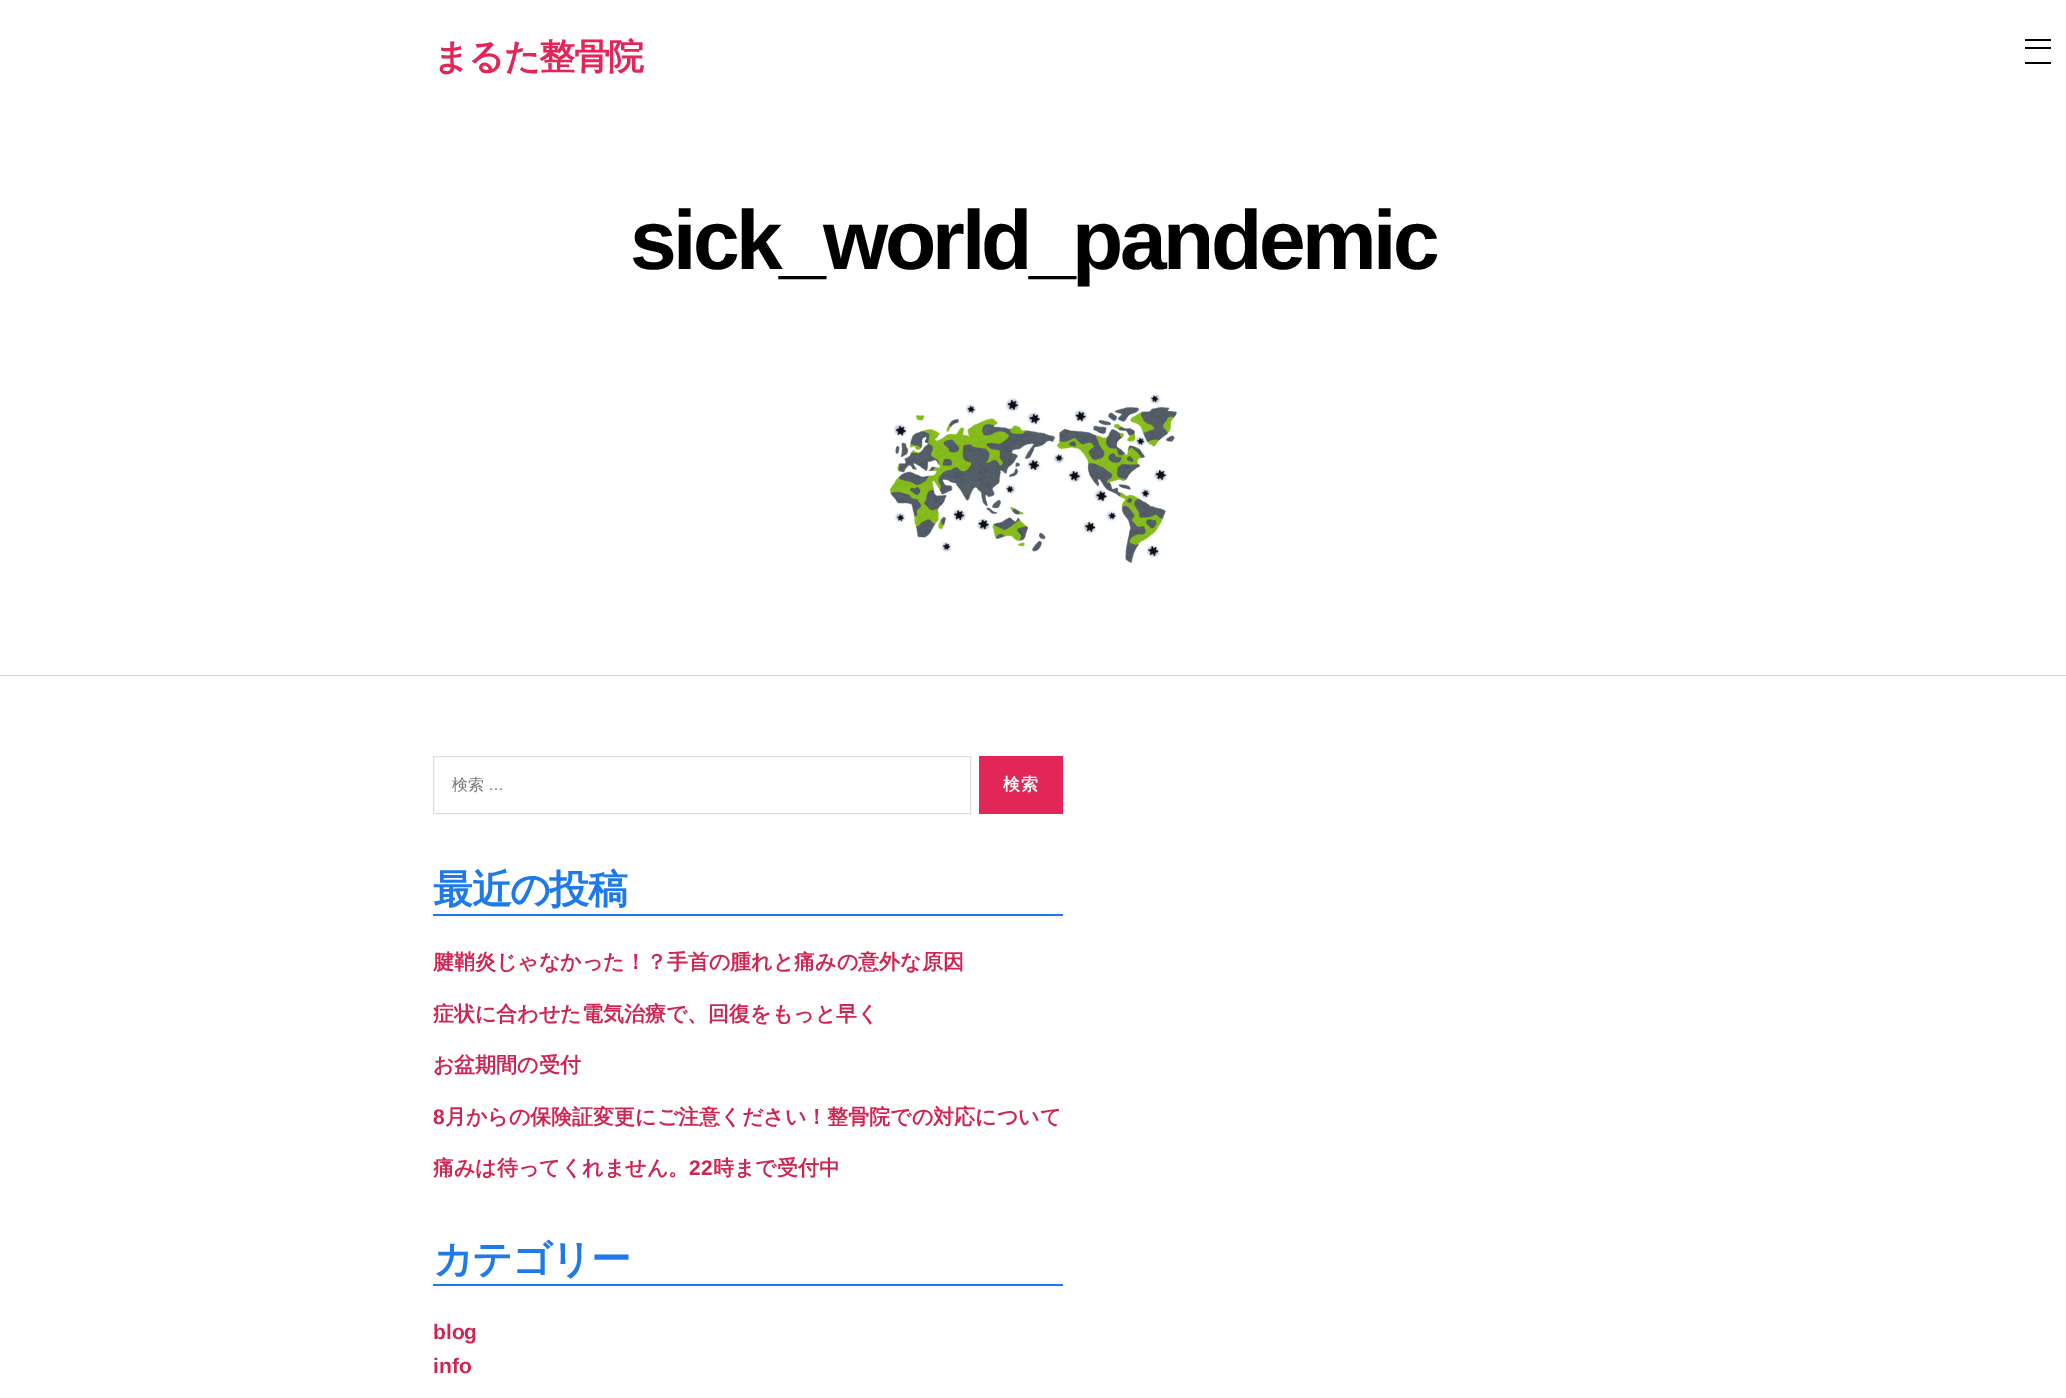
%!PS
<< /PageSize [2066 1398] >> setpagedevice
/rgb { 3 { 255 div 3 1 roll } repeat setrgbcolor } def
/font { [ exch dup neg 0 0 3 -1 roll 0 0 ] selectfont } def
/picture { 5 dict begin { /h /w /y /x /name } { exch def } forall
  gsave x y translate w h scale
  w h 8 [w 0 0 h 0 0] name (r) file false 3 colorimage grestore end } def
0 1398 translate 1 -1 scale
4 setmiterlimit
255 255 255 rgb
0 0 2066 1398 rectfill
[
  [2025 47 26 2 0 0 0]
  [2025 39 26 2 0 0 0]
  [2025 62 26 2 0 0 0]
] { aload pop rgb rectfill } forall
(img/1.rgb) 889 394 288 169 picture
220 215 202 rgb
0 675 2066 1 rectfill
222 223 223 rgb
433.5 756.5 537 57 rectstroke
[
  [979 756 84 58 226 38 88]
  [433 914 630 2 30 122 235]
  [433 1284 630 2 30 122 235]
] { aload pop rgb rectfill } forall
/WenQuanYiZenHei-Bold 36 font
226 38 88 rgb
433 69 moveto -1.5 0 (まるた整骨院) ashow
/LiberationSans-Bold 84 font
0 0 0 rgb
630 269 moveto -3.5 0 (sick_world_pandemic) ashow
/WenQuanYiZenHei-Medium 16 font
117 117 117 rgb
452 790 moveto (検索) show
/LiberationSans-Regular 16 font
488 790 moveto (…) show
/WenQuanYiZenHei-Bold 17 font
255 255 255 rgb
1003 790 moveto 1 0 (検索) ashow
/WenQuanYiZenHei-Bold 40 font
30 122 235 rgb
433 903 moveto -1.5 0 (最近の投稿) ashow
/WenQuanYiZenHei-Bold 21 font
205 38 83 rgb
[
  [(腱鞘炎じゃなかった！？手首の腫れと痛みの意外な原因) 433 969]
  [(症状に合わせた電気治療で、回復をもっと早く) 433 1021]
  [(お盆期間の受付) 433 1072]
] { aload pop moveto show } forall
/LiberationSans-Bold 21 font
433 1124 moveto (8) show
/WenQuanYiZenHei-Bold 21 font
445 1124 moveto (月からの保険証変更にご注意ください！整骨院での対応について) show
433 1175 moveto (痛みは待ってくれません。) show
/LiberationSans-Bold 21 font
689 1175 moveto (22) show
/WenQuanYiZenHei-Bold 21 font
713 1175 moveto (時まで受付中) show
/WenQuanYiZenHei-Bold 40 font
30 122 235 rgb
433 1273 moveto -1.5 0 (カテゴリー) ashow
/LiberationSans-Bold 21 font
205 38 83 rgb
433 1339 moveto (blog) show
433 1373 moveto (info) show
showpage
